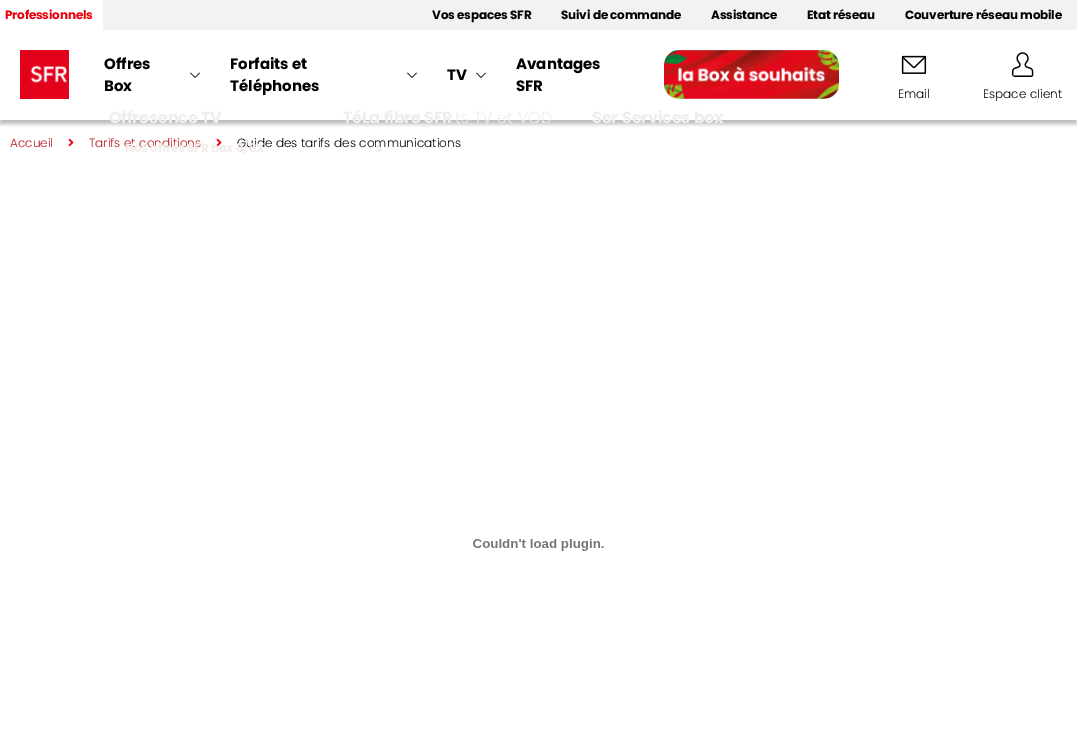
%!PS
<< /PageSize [1077 738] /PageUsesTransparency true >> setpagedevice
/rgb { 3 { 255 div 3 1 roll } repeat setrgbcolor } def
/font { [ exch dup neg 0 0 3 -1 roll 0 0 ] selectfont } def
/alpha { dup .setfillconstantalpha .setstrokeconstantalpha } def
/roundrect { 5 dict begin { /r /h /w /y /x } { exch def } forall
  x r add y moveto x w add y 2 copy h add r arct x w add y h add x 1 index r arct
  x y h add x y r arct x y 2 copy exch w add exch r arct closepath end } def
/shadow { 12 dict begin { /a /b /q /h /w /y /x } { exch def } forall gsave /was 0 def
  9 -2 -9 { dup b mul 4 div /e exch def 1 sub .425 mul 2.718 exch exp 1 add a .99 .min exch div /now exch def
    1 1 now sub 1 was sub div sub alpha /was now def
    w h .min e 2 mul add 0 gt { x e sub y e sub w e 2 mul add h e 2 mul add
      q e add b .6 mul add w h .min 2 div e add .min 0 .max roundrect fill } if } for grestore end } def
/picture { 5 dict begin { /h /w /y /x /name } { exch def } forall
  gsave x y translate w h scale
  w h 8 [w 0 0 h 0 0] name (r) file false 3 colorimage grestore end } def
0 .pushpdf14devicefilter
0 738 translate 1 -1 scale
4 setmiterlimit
255 255 255 rgb
0 0 1077 738 rectfill
242 242 242 rgb
103 0 974 30 rectfill
gsave
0 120 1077 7 rectclip
0 0 0 rgb
0 34 1077 90 0 2 0.27 shadow
grestore
(img/1.rgb) 20 50 49 49 picture
(img/2.rgb) 190 72 10 6 picture
(img/2.rgb) 407 72 10 6 picture
(img/2.rgb) 476 72 10 6 picture
(img/3.rgb) 664 50 175 49 picture
(img/4.rgb) 901 55 26 19 picture
(img/5.rgb) 1011 52 23 25 picture
(img/6.rgb) 68 138 6 9 picture
(img/6.rgb) 216 138 6 9 picture
(img/7.rgb) 473 539 131 12 picture
/Poppins-Bold 12 font
235 0 10 rgb
5 19 moveto -0.2 0 (Professionnels) ashow
0 0 0 rgb
432 19 moveto -0.2 0 (Vos espaces SFR) ashow
561 19 moveto -0.2 0 (Suivi de commande) ashow
711 19 moveto -0.2 0 (Assistance) ashow
807 19 moveto -0.2 0 (Etat réseau) ashow
905 19 moveto -0.2 0 (Couverture réseau mobile) ashow
/Poppins-Bold 15 font
104 69 moveto (Offres) show
104 91 moveto (Box) show
/Poppins-Bold 16 font
238 238 238 rgb
109 123 moveto -0.2 0 (Offres) ashow
362 123 moveto -0.2 0 (La fibre SFR) ashow
622 123 moveto -0.2 0 (Services box) ashow
/Poppins-Bold 15 font
0 0 0 rgb
230 69 moveto (Forfaits et) show
230 91 moveto (Téléphones) show
/Poppins-Bold 16 font
238 238 238 rgb
343 123 moveto -0.2 0 (Té) ashow
/Poppins-Bold 12 font
375 152 moveto -0.2 0 (s) ashow
/Poppins-Bold 16 font
592 123 moveto -0.2 0 (Ser) ashow
/Poppins-Bold 15 font
0 0 0 rgb
447 80 moveto (TV) show
/Poppins-Bold 16 font
238 238 238 rgb
158 123 moveto -0.2 0 (ence TV) ashow
/Poppins-Light 16 font
455 123 moveto (ts TV et VOD) show
/Poppins-Bold 15 font
0 0 0 rgb
516 69 moveto (Avantages) show
516 91 moveto (SFR) show
/Poppins-Light 12 font
898 98 moveto (Email) show
983 98 moveto (Espace client) show
180 25 25 rgb
10 147 moveto (Accueil) show
89 147 moveto (Tarifs et conditions) show
0 0 0 rgb
237 147 moveto (Guide des tarifs des communications) show
/Poppins-Bold 12 font
244 235 235 rgb
125 152 moveto -0.2 0 (Nos offres SFR box 8/8X) ashow
.poppdf14devicefilter showpage
